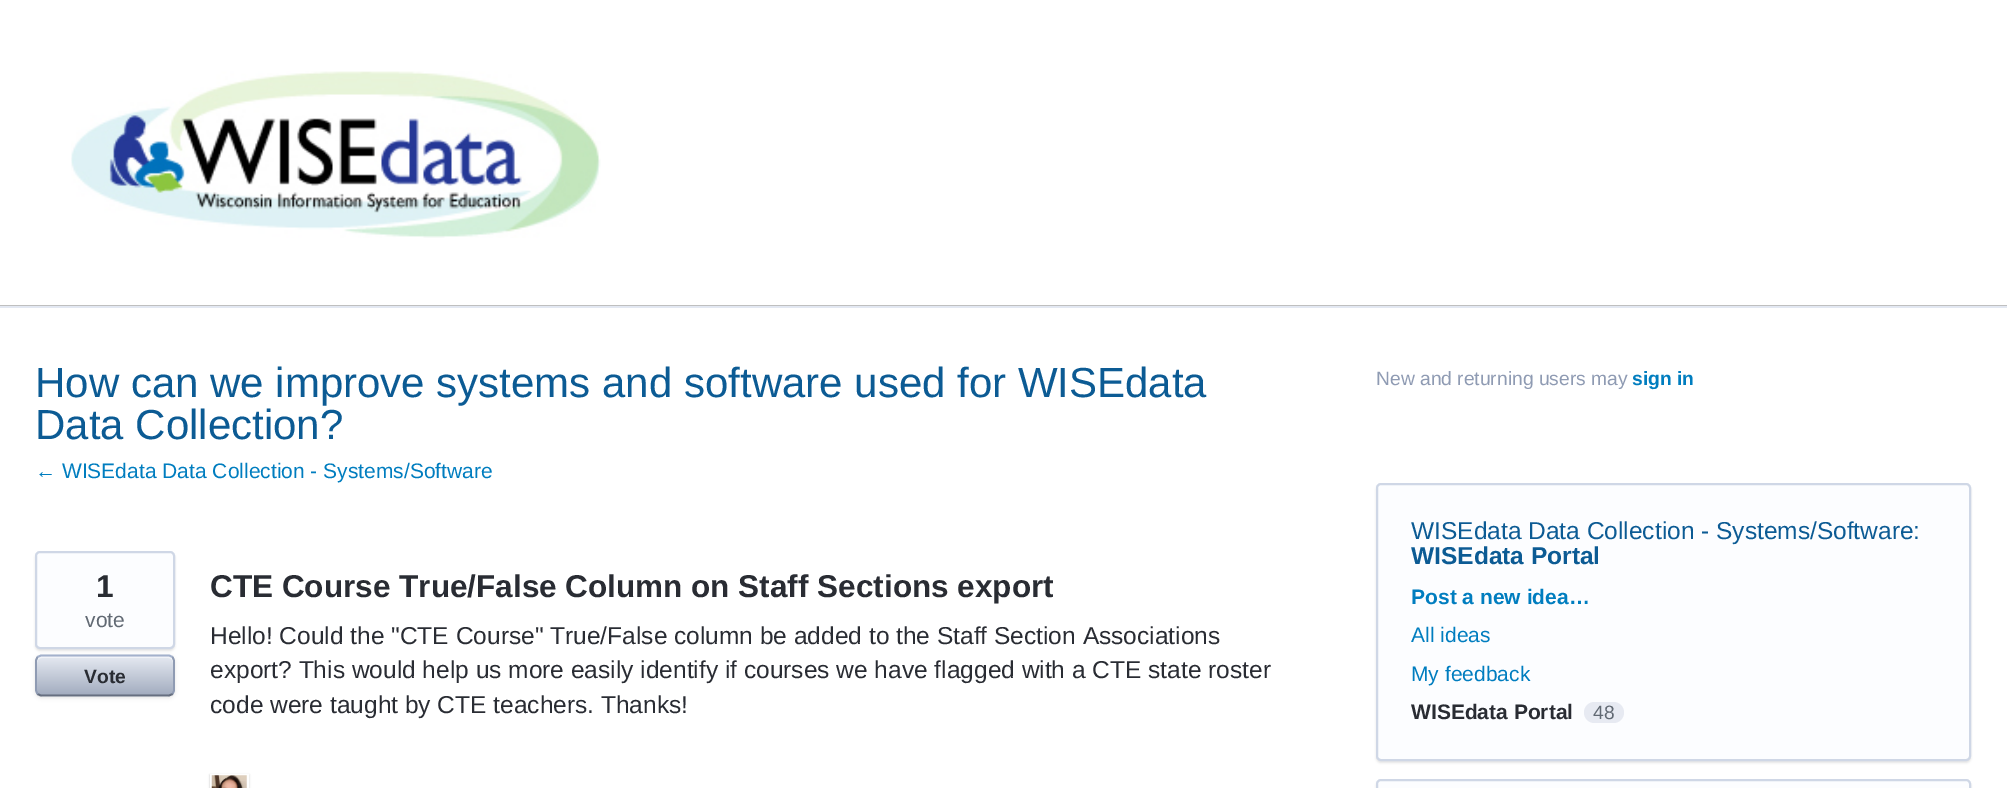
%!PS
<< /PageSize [2007 788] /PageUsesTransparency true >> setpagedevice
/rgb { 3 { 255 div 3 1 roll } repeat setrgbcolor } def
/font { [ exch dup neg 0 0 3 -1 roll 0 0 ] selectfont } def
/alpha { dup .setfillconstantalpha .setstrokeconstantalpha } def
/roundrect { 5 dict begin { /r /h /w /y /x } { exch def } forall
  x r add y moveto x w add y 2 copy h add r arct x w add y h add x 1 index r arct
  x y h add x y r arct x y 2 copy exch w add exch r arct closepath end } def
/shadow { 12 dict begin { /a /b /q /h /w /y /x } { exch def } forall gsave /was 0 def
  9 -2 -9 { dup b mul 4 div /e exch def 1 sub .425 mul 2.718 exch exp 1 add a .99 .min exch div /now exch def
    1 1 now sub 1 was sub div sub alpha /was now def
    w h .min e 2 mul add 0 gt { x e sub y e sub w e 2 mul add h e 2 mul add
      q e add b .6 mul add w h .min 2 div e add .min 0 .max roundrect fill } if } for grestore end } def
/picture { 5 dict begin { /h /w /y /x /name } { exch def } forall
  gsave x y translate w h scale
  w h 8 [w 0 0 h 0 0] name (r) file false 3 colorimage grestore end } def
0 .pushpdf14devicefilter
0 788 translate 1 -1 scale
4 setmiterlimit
255 255 255 rgb
0 0 2007 788 rectfill
191 191 191 rgb
0 305 2007 1 rectfill
(img/1.rgb) 71 71 530 167 picture
227 232 242 rgb
0 306 2007 2 rectfill
0 0 0 rgb
35 553 140 98 5 1 0.1 shadow
252 253 255 rgb
36 552 138 96 4 roundrect gsave fill grestore
207 215 230 rgb
2 setlinewidth
stroke
gsave
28 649 moveto 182 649 lineto 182 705 lineto 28 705 lineto closepath 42 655 moveto 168 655 lineto 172 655 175 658 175 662 curveto 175 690 lineto 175 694 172 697 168 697 curveto 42 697 lineto 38 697 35 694 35 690 curveto 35 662 lineto 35 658 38 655 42 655 curveto closepath eoclip newpath
0 0 0 rgb
35 656 140 42 7 2 0.1 shadow
grestore
gsave 37 656 136 39 5 roundrect clip newpath
<< /ShadingType 2 /ColorSpace /DeviceRGB /Coords [37 656 37 695] /Extend [true true] /Function << /FunctionType 2 /Domain [0 1] /C0 [0.902 0.918 0.949] /C1 [0.635 0.675 0.749] /N 1 >> >> shfill grestore
0.5 alpha
255 255 255 rgb
42 658 moveto 168 658 lineto 171 658 173 660 173 663 curveto 173 661 lineto 173 658 171 656 168 656 curveto 42 656 lineto 39 656 37 658 37 661 curveto 37 663 lineto 37 660 39 658 42 658 curveto closepath fill
1 alpha
163 177 204 rgb
1.8 setlinewidth
37.5 657 moveto 39 656 40.5 655.5 42 655.5 curveto 168 655.5 lineto 169.5 655.5 171 656 172.5 657 curveto stroke
143 155 179 rgb
172.5 657 moveto 173.5 658.5 174 660 174 661.5 curveto 174 689.5 lineto 174 691 173.5 692.5 172.5 694 curveto stroke
102 111 128 rgb
172.5 694 moveto 171 695 169.5 695.5 168 695.5 curveto 42 695.5 lineto 40.5 695.5 39 695 37.5 694 curveto stroke
143 155 179 rgb
37.5 694 moveto 36.5 692.5 36 691 36 689.5 curveto 36 661.5 lineto 36 660 36.5 658.5 37.5 657 curveto stroke
0 0 0 rgb
210 775 39 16 0 1 0.25 shadow
255 255 255 rgb
2 setlinewidth
211 775 37 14 rectstroke
(img/2.rgb) 211 775 36 13 picture
0 0 0 rgb
1376 485 595 278 5 1 0.1 shadow
252 253 255 rgb
1377 484 593 276 4 roundrect gsave fill grestore
207 215 230 rgb
stroke
231 234 242 rgb
1584 702 40 21 10.5 roundrect fill
0 0 0 rgb
1376 781 595 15 5 1 0.1 shadow
252 253 255 rgb
1377 780 593 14 4 roundrect gsave fill grestore
207 215 230 rgb
stroke
/LiberationSans-Regular 42 font
12 91 148 rgb
35 397 moveto (How can we improve systems and software used for WISEdata) show
35 439 moveto (Data Collection?) show
/LiberationSans-Regular 21 font
0 125 191 rgb
35 478 moveto (← WISEdata Data Collection - Systems/Software) show
/LiberationSans-Bold 31.5 font
41 44 51 rgb
96 597 moveto (1) show
/LiberationSans-Regular 21 font
97 105 115 rgb
85 627 moveto (vote) show
/LiberationSans-Bold 19.25 font
41 44 51 rgb
84 683 moveto (Vote) show
/LiberationSans-Bold 31.5 font
210 597 moveto (CTE Course True/False Column on Staff Sections export) show
/LiberationSans-Regular 24.5 font
[
  [(Hello! Could the "CTE Course" True/False column be added to the Staff Section Associations) 210 644]
  [(export? This would help us more easily identify if courses we have flagged with a CTE state roster) 210 678]
  [(code were taught by CTE teachers. Thanks!) 210 713]
] { aload pop moveto show } forall
/LiberationSans-Regular 19.25 font
143 155 179 rgb
1376 385 moveto (New and returning users may) show
/LiberationSans-Bold 19.25 font
0 125 191 rgb
1632 385 moveto (sign in) show
/LiberationSans-Regular 24.5 font
12 91 148 rgb
1411 539 moveto (WISEdata Data Collection - Systems/Software:) show
/LiberationSans-Bold 24.5 font
1411 564 moveto (WISEdata Portal) show
/LiberationSans-Bold 21 font
0 125 191 rgb
1411 604 moveto (Post a new idea…) show
/LiberationSans-Regular 21 font
1411 642 moveto (All ideas) show
1411 681 moveto (My feedback) show
/LiberationSans-Bold 21 font
41 44 51 rgb
1411 719 moveto (WISEdata Portal) show
/LiberationSans-Regular 19.25 font
97 105 115 rgb
1593 719 moveto (48) show
.poppdf14devicefilter showpage
